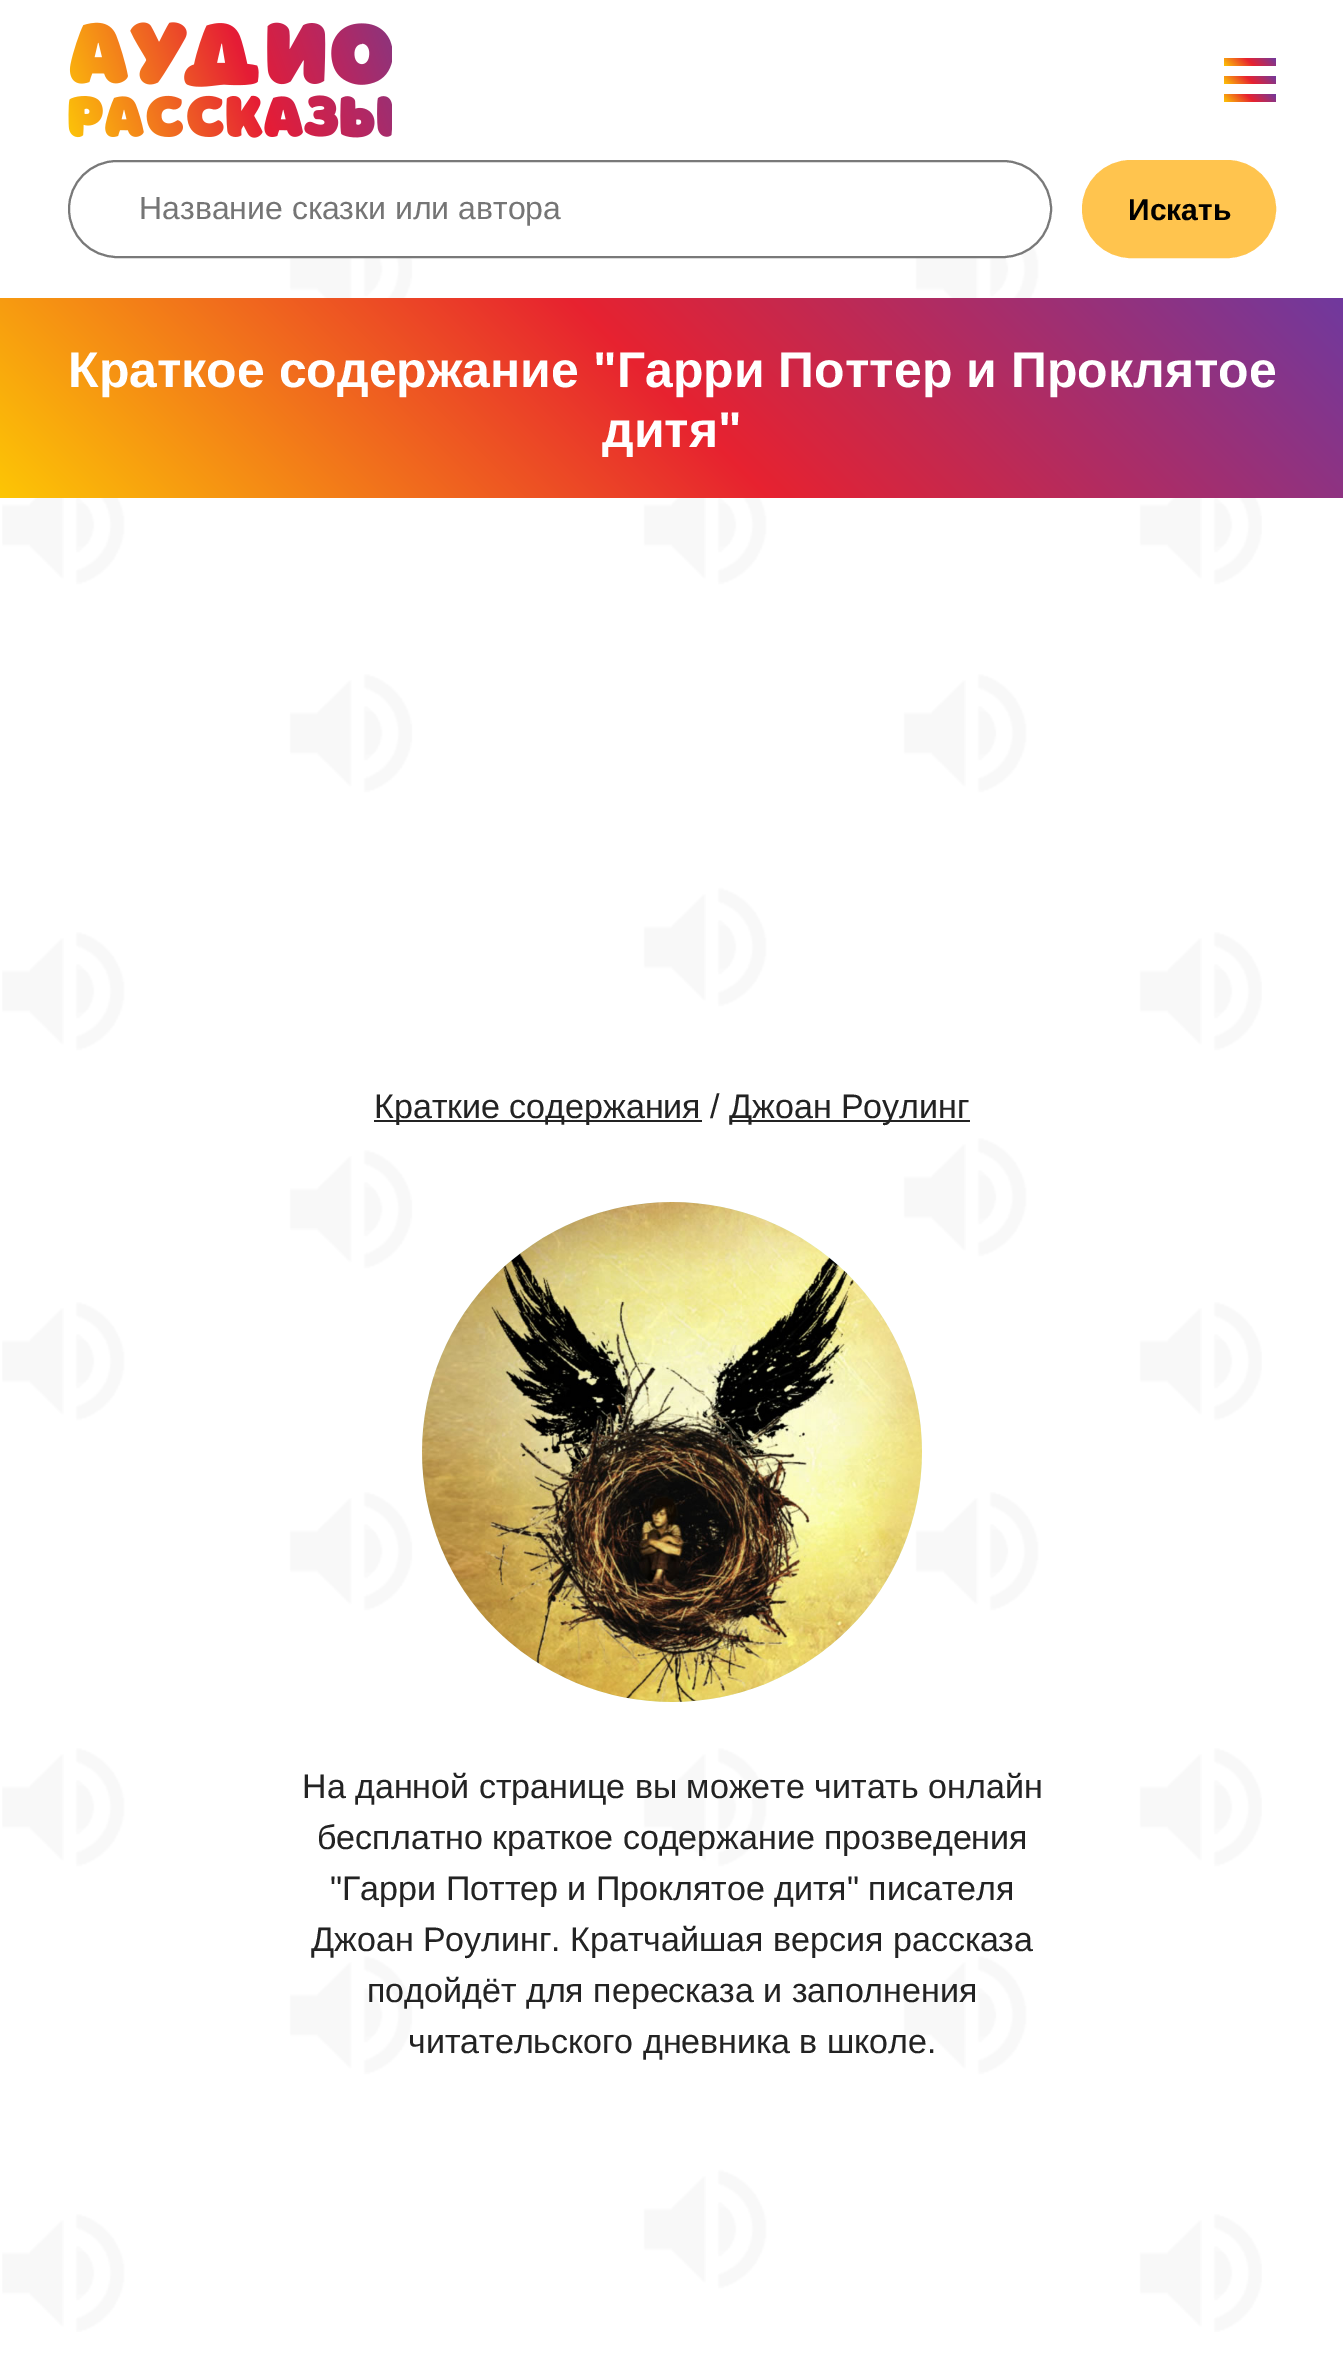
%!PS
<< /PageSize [1343 2374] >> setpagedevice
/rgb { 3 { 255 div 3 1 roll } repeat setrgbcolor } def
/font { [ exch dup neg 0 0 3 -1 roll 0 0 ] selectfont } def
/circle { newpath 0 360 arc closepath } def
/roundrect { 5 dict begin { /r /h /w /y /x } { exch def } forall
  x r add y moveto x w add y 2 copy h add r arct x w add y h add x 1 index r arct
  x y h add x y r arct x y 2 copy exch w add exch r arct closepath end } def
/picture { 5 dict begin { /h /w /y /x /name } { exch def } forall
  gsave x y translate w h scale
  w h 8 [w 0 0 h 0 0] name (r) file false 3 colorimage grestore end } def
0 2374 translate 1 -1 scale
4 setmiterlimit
255 255 255 rgb
0 0 1343 2374 rectfill
(img/1.rgb) 2 246 1260 2086 picture
(img/2.rgb) 68 22 324 116 picture
gsave 1224 76 52 8 2 roundrect clip newpath
<< /ShadingType 2 /ColorSpace /DeviceRGB /Coords [1235 95 1265 65] /Extend [true true] /Function << /FunctionType 3 /Domain [0 1] /Functions [<< /FunctionType 2 /Domain [0 1] /C0 [0.992 0.776 0.02] /C1 [0.906 0.133 0.188] /N 1 >> << /FunctionType 2 /Domain [0 1] /C0 [0.906 0.133 0.188] /C1 [0.439 0.224 0.62] /N 1 >>] /Bounds [0.5] /Encode [0 1 0 1] >> >> shfill grestore
gsave 1224 58 52 8 2 roundrect clip newpath
<< /ShadingType 2 /ColorSpace /DeviceRGB /Coords [1235 77 1265 47] /Extend [true true] /Function << /FunctionType 3 /Domain [0 1] /Functions [<< /FunctionType 2 /Domain [0 1] /C0 [0.992 0.776 0.02] /C1 [0.906 0.133 0.188] /N 1 >> << /FunctionType 2 /Domain [0 1] /C0 [0.906 0.133 0.188] /C1 [0.439 0.224 0.62] /N 1 >>] /Bounds [0.5] /Encode [0 1 0 1] >> >> shfill grestore
gsave 1224 94 52 8 2 roundrect clip newpath
<< /ShadingType 2 /ColorSpace /DeviceRGB /Coords [1235 113 1265 83] /Extend [true true] /Function << /FunctionType 3 /Domain [0 1] /Functions [<< /FunctionType 2 /Domain [0 1] /C0 [0.992 0.776 0.02] /C1 [0.906 0.133 0.188] /N 1 >> << /FunctionType 2 /Domain [0 1] /C0 [0.906 0.133 0.188] /C1 [0.439 0.224 0.62] /N 1 >>] /Bounds [0.5] /Encode [0 1 0 1] >> >> shfill grestore
69 161 982 96 48 roundrect gsave fill grestore
121 121 121 rgb
2 setlinewidth
stroke
255 196 78 rgb
1085 163 188 92 46 roundrect gsave fill grestore
6 setlinewidth
stroke
gsave 0 298 moveto 1343 298 lineto 1343 498 lineto 0 498 lineto closepath clip newpath
<< /ShadingType 2 /ColorSpace /DeviceRGB /Coords [286 784 1058 12] /Extend [true true] /Function << /FunctionType 3 /Domain [0 1] /Functions [<< /FunctionType 2 /Domain [0 1] /C0 [0.992 0.776 0.02] /C1 [0.906 0.133 0.188] /N 1 >> << /FunctionType 2 /Domain [0 1] /C0 [0.906 0.133 0.188] /C1 [0.439 0.224 0.62] /N 1 >>] /Bounds [0.5] /Encode [0 1 0 1] >> >> shfill grestore
35 35 35 rgb
374 1120 328 2 rectfill
730 1120 240 2 rectfill
230 253 255 rgb
672 1452 250 circle fill
(img/3.rgb) 422 1202 500 500 picture
/LiberationSans-Regular 32 font
117 117 117 rgb
139 219 moveto (Название сказки или автора) show
/LiberationSans-Bold 30 font
0 0 0 rgb
1128 220 moveto (Искать) show
/LiberationSans-Bold 50 font
255 255 255 rgb
68 387 moveto (Краткое содержание "Гарри Поттер и Проклятое) show
602 447 moveto (дитя") show
/LiberationSans-Regular 34 font
35 35 35 rgb
[
  [(Краткие содержания) 374 1118]
  [(/) 710 1118]
  [(Джоан Роулинг) 729 1118]
  [(На данной странице вы можете читать онлайн) 302 1798]
  [(бесплатно краткое содержание прозведения) 317 1849]
  [("Гарри Поттер и Проклятое дитя" писателя) 330 1900]
  [(Джоан Роулинг. Кратчайшая версия рассказа) 311 1951]
  [(подойдёт для пересказа и заполнения) 367 2002]
  [(читательского дневника в школе.) 408 2053]
] { aload pop moveto show } forall
showpage
